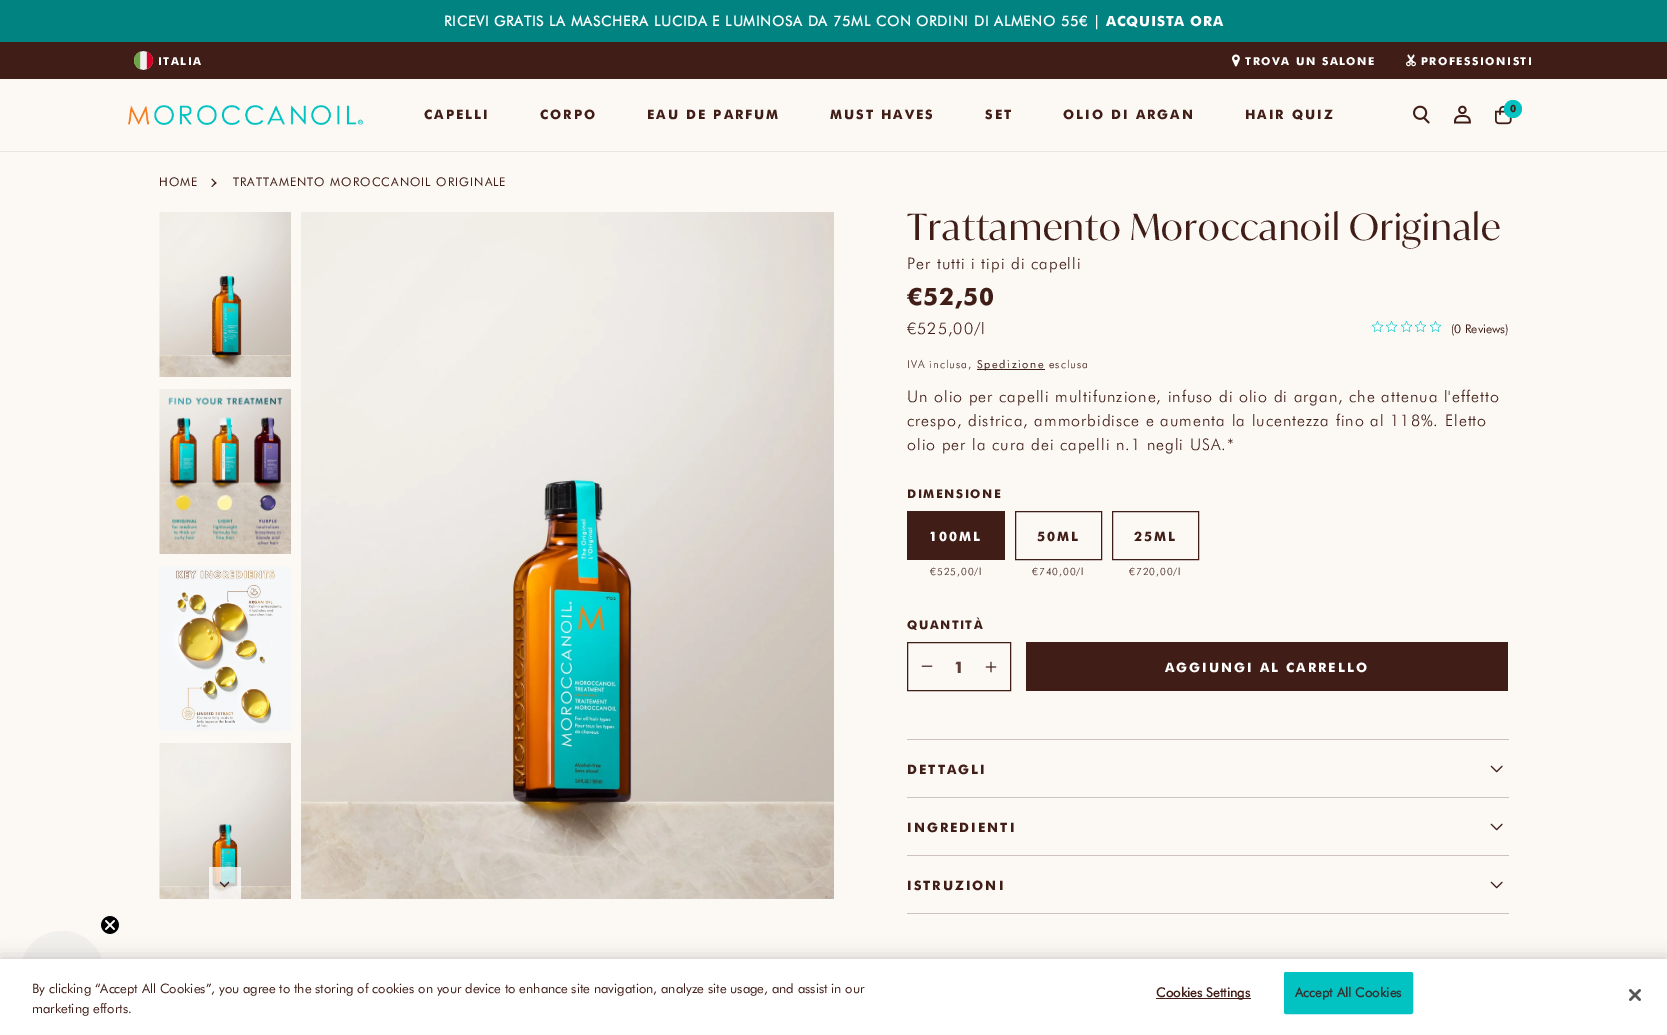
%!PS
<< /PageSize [1667 1035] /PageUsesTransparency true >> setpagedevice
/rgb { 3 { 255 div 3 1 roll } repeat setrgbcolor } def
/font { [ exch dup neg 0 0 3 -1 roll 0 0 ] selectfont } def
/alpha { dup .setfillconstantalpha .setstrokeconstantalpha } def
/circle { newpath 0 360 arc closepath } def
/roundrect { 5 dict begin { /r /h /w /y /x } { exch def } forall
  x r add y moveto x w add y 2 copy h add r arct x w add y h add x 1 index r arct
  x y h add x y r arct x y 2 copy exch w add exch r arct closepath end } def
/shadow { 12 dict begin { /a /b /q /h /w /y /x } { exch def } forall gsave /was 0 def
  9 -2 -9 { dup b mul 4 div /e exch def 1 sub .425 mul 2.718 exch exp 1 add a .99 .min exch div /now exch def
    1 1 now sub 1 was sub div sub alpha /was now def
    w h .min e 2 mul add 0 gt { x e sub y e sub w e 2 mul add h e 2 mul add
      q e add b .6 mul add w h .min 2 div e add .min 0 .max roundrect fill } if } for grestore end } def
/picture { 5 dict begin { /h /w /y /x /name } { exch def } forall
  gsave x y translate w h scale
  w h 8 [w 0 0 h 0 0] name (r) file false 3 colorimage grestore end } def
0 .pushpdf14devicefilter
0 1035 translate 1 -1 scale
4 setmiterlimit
252 248 244 rgb
0 0 1667 1035 rectfill
1 131 130 rgb
0 0 1667 42 rectfill
64 30 23 rgb
0 42 1667 37 rectfill
(img/1.rgb) 134 51 19 19 picture
(img/2.rgb) 1232 54 8 13 picture
(img/3.rgb) 1406 54 10 13 picture
236 229 227 rgb
0 151 1667 1 rectfill
(img/4.rgb) 128 105 235 20 picture
(img/5.rgb) 1413 105 17 19 picture
(img/6.rgb) 1454 105 17 19 picture
(img/7.rgb) 1495 105 17 20 picture
2 195 194 rgb
1513 109 9 circle fill
64 30 23 rgb
212 178.5 moveto 216.5 183 lineto 215.5 183.5 lineto 211.5 179.5 lineto closepath fill
215.5 182 moveto 216.5 183 lineto 212 187 lineto 211.5 186.5 lineto closepath fill
(img/8.rgb) 159 212 132 165 picture
(img/9.rgb) 159 389 132 165 picture
(img/10.rgb) 159 566 132 165 picture
(img/11.rgb) 159 743 132 156 picture
0.75 alpha
255 255 255 rgb
209 867 32 32 rectfill
1 alpha
(img/12.rgb) 219 881 11 7 picture
(img/13.rgb) 301 212 533 687 picture
64 30 23 rgb
977 369 68 1 rectfill
(img/14.rgb) 1372 321 11 11 picture
(img/14.rgb) 1386 321 11 11 picture
(img/14.rgb) 1401 321 11 11 picture
(img/14.rgb) 1415 321 11 11 picture
(img/14.rgb) 1430 321 11 11 picture
907 511 98 49 rectfill
1015.5 511.5 86 48 rectstroke
1112.5 511.5 86 48 rectstroke
907.5 642.5 103 48 rectstroke
(img/15.rgb) 921 665 12 2 picture
(img/16.rgb) 985 661 12 12 picture
[
  [1026 642 482 49 64 30 23]
  [907 739 602 1 205 194 189]
  [907 797 602 1 205 194 189]
] { aload pop rgb rectfill } forall
(img/17.rgb) 1490 765 13 8 picture
907 855 602 1 rectfill
(img/17.rgb) 1490 823 13 8 picture
907 913 602 1 rectfill
(img/17.rgb) 1490 881 13 8 picture
242 240 236 rgb
62 973 42 circle fill
(img/18.rgb) 100 915 20 20 picture
0 0 0 rgb
0 959 1667 76 0 9 0.2 shadow
255 255 255 rgb
0 959 1667 76 rectfill
64 30 23 rgb
1156 998 95 1 rectfill
2 195 194 rgb
1284.5 972.5 128 41 1.5 roundrect gsave fill grestore
stroke
(img/19.rgb) 1629 989 12 12 picture
/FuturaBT-Bold 14 font
255 255 255 rgb
444 26 moveto 0.8 0 (RICEVI GRATIS LA MASCHERA LUCIDA E LUMINOSA DA 75ML CON ORDINI DI ALMENO 55€ |) ashow
/FuturaBT-Black 14 font
1106 26 moveto 0.8 0 (ACQUISTA ORA) ashow
/FuturaBT-Black 11 font
158 65 moveto 1.5 0 (ITALIA) ashow
1245 65 moveto 1.5 0 (TROVA UN SALONE) ashow
1421 65 moveto 1.5 0 (PROFESSIONISTI) ashow
/FuturaBT-Black 13 font
64 30 23 rgb
424 119 moveto 2 0 (CAPELLI) ashow
540 119 moveto 2 0 (CORPO) ashow
647 119 moveto 2 0 (EAU DE PARFUM) ashow
830 119 moveto 2 0 (MUST HAVES) ashow
985 119 moveto 2 0 (SET) ashow
1063 119 moveto 2 0 (OLIO DI ARGAN) ashow
1245 119 moveto 2 0 (HAIR QUIZ) ashow
/FuturaBT-Black 10 font
1510 112 moveto (0) show
/FuturaBT-Regular 12 font
159 186 moveto 1 0 (HOME) ashow
233 186 moveto 1 0 (TRATTAMENTO MOROCCANOIL ORIGINALE) ashow
/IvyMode-Regular 36 font
907 240 moveto 1 0 (Trattamento Moroccanoil Originale) ashow
/FuturaBT-Light 16 font
907 269 moveto 1 0 (Per tutti i tipi di capelli) ashow
/FuturaBT-Black 24 font
907 305 moveto 1 0 (€52,50) ashow
/FuturaBT-Light 16 font
907 334 moveto 1 0 (€525,00/l) ashow
/FuturaBT-Light 11 font
907 368 moveto 1 0 (IVA inclusa,) ashow
/FuturaBT-Regular 11 font
977 368 moveto 1.6 0 (Spedizione) ashow
/FuturaBT-Light 11 font
1049 368 moveto 1 0 (esclusa) ashow
/FuturaBT-Regular 12 font
1451 333 moveto (\(0 Reviews\)) show
/FuturaBT-Light 16 font
907 402 moveto 1 0 (Un olio per capelli multifunzione, infuso di olio di argan, che attenua l'effetto) ashow
907 426 moveto 1 0 (crespo, districa, ammorbidisce e aumenta la lucentezza fino al 118%. Eletto) ashow
907 450 moveto 1 0 (olio per la cura dei capelli n.1 negli USA.*) ashow
/FuturaBT-Black 12 font
907 498 moveto 1.5 0 (DIMENSIONE) ashow
/FuturaBT-Black 13 font
255 255 255 rgb
929 541 moveto 2 0 (100ML) ashow
/FuturaBT-Light 10 font
64 30 23 rgb
930 575 moveto 1 0 (€525,00/l) ashow
/FuturaBT-Black 13 font
1037 541 moveto 2 0 (50ML) ashow
/FuturaBT-Light 10 font
1032 575 moveto 1 0 (€740,00/l) ashow
/FuturaBT-Black 13 font
1134 541 moveto 2 0 (25ML) ashow
/FuturaBT-Light 10 font
1129 575 moveto 1 0 (€720,00/l) ashow
/FuturaBT-Black 12 font
907 629 moveto 1.5 0 (QUANTITÀ) ashow
/FuturaBT-Black 16 font
92 63 56 rgb
954 673 moveto (1) show
/FuturaBT-Black 13 font
255 255 255 rgb
1165 672 moveto 2 0 (AGGIUNGI AL CARRELLO) ashow
64 30 23 rgb
907 774 moveto 2 0 (DETTAGLI) ashow
907 832 moveto 2 0 (INGREDIENTI) ashow
907 890 moveto 2 0 (ISTRUZIONI) ashow
/FuturaBT-Regular 13 font
32 993 moveto (By clicking “Accept All Cookies”, you agree to the storing of cookies on your device to enhance site navigation, analyze site usage, and assist in our) show
32 1013 moveto (marketing efforts.) show
/FuturaBT-Bold 13 font
1156 997 moveto 0.1 0 (Cookies Settings) ashow
51 51 51 rgb
1295 997 moveto 0.1 0 (Accept All Cookies) ashow
.poppdf14devicefilter showpage
